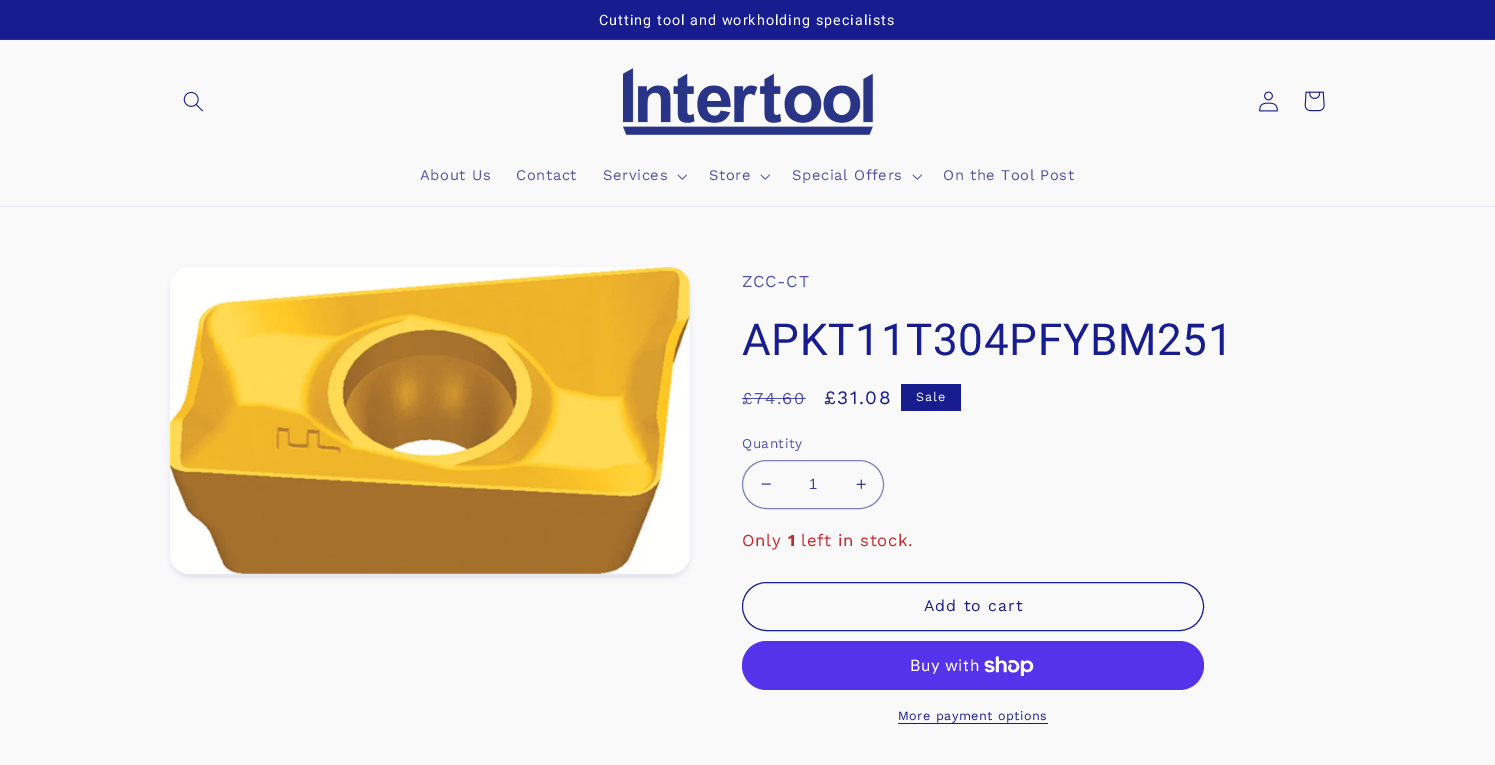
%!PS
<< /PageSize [1495 765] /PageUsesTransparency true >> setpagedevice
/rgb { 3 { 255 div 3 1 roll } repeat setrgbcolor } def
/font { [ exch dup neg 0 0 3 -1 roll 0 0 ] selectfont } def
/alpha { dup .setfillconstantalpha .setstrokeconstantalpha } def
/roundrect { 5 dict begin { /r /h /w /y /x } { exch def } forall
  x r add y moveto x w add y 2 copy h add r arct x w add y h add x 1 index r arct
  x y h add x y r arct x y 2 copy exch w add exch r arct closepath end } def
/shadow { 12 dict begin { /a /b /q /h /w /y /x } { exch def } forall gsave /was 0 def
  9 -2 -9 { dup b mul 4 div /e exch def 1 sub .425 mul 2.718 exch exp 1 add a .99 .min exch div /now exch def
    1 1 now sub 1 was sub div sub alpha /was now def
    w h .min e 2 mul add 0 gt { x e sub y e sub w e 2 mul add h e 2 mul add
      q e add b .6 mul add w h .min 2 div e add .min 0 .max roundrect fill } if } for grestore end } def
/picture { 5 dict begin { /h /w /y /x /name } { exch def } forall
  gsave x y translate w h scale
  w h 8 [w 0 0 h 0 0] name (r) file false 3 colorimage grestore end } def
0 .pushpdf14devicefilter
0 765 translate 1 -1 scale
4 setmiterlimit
249 249 249 rgb
0 0 1495 765 rectfill
[
  [0 0 1495 39 23 28 143]
  [0 39 1495 1 42 46 152]
  [0 206 1495 1 231 231 241]
] { aload pop rgb rectfill } forall
(img/1.rgb) 183 91 20 21 picture
(img/2.rgb) 623 68 250 67 picture
(img/3.rgb) 1259 91 19 21 picture
(img/4.rgb) 1304 91 21 21 picture
(img/5.rgb) 677 174 10 6 picture
(img/5.rgb) 760 174 10 6 picture
(img/5.rgb) 912 174 10 6 picture
23 28 143 rgb
170 271 520 307 20 2.5 0.1 shadow
249 249 249 rgb
170 267 520 307 20 roundrect fill
(img/6.rgb) 170 267 520 307 picture
23 28 143 rgb
901 384 60 27 rectfill
(img/7.rgb) 761 483 10 2 picture
(img/8.rgb) 856 479 10 10 picture
125 127 191 rgb
742.5 460.5 141 48 24 roundrect stroke
23 28 143 rgb
742.5 582.5 461 48 24 roundrect stroke
84 51 235 rgb
742 641 462 49 24.5 roundrect fill
(img/9.rgb) 984 656 50 20 picture
23 28 143 rgb
898 723 150 1 rectfill
/Roboto-Regular 14.3 font
255 255 255 rgb
599 25 moveto 1.05 0 (Cutting tool and workholding specialists) ashow
/WorkSans-Regular 14.75 font
80 83 170 rgb
420 180 moveto 0.6 0 (About Us) ashow
516 180 moveto 0.6 0 (Contact) ashow
603 180 moveto 0.6 0 (Services) ashow
709 180 moveto 0.6 0 (Store) ashow
792 180 moveto 0.6 0 (Special Offers) ashow
943 180 moveto 0.6 0 (On the Tool Post) ashow
/WorkSans-Regular 16.75 font
742 287 moveto 0.6 0 (ZCC-CT) ashow
/Roboto-Regular 44 font
23 28 143 rgb
742 355 moveto 0.7 0 (APKT11T304PFYBM251) ashow
/WorkSans-Regular 16.75 font
80 83 170 rgb
742 404 moveto 1.5 0 (£74.60) ashow
0.75 alpha
23 28 143 rgb
742 398 64 1 rectfill
/WorkSans-Regular 19 font
1 alpha
824 404 moveto 1.5 0 (£31.08) ashow
/WorkSans-Regular 12.6 font
255 255 255 rgb
916 401 moveto 1.05 0 (Sale) ashow
/WorkSans-Regular 13.5 font
80 83 170 rgb
742 448 moveto 0.5 0 (Quantity) ashow
/LiberationSans-Regular 14.75 font
57 61 159 rgb
809 489 moveto (1) show
/WorkSans-Regular 16.75 font
199 39 43 rgb
742 546 moveto 0.6 0 (Only) ashow
/WorkSans-Bold 16.75 font
788 546 moveto 0.6 0 (1) ashow
/WorkSans-Regular 16.75 font
801 546 moveto 0.6 0 (left in stock.) ashow
/WorkSans-Regular 15.75 font
23 28 143 rgb
924 611 moveto 1.05 0 (Add to cart) ashow
/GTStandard-Regular 16 font
255 255 255 rgb
910 671 moveto 0.6 0 (Buy with) ashow
/WorkSans-Regular 12.6 font
23 28 143 rgb
898 720 moveto 0.5 0 (More payment options) ashow
.poppdf14devicefilter showpage
